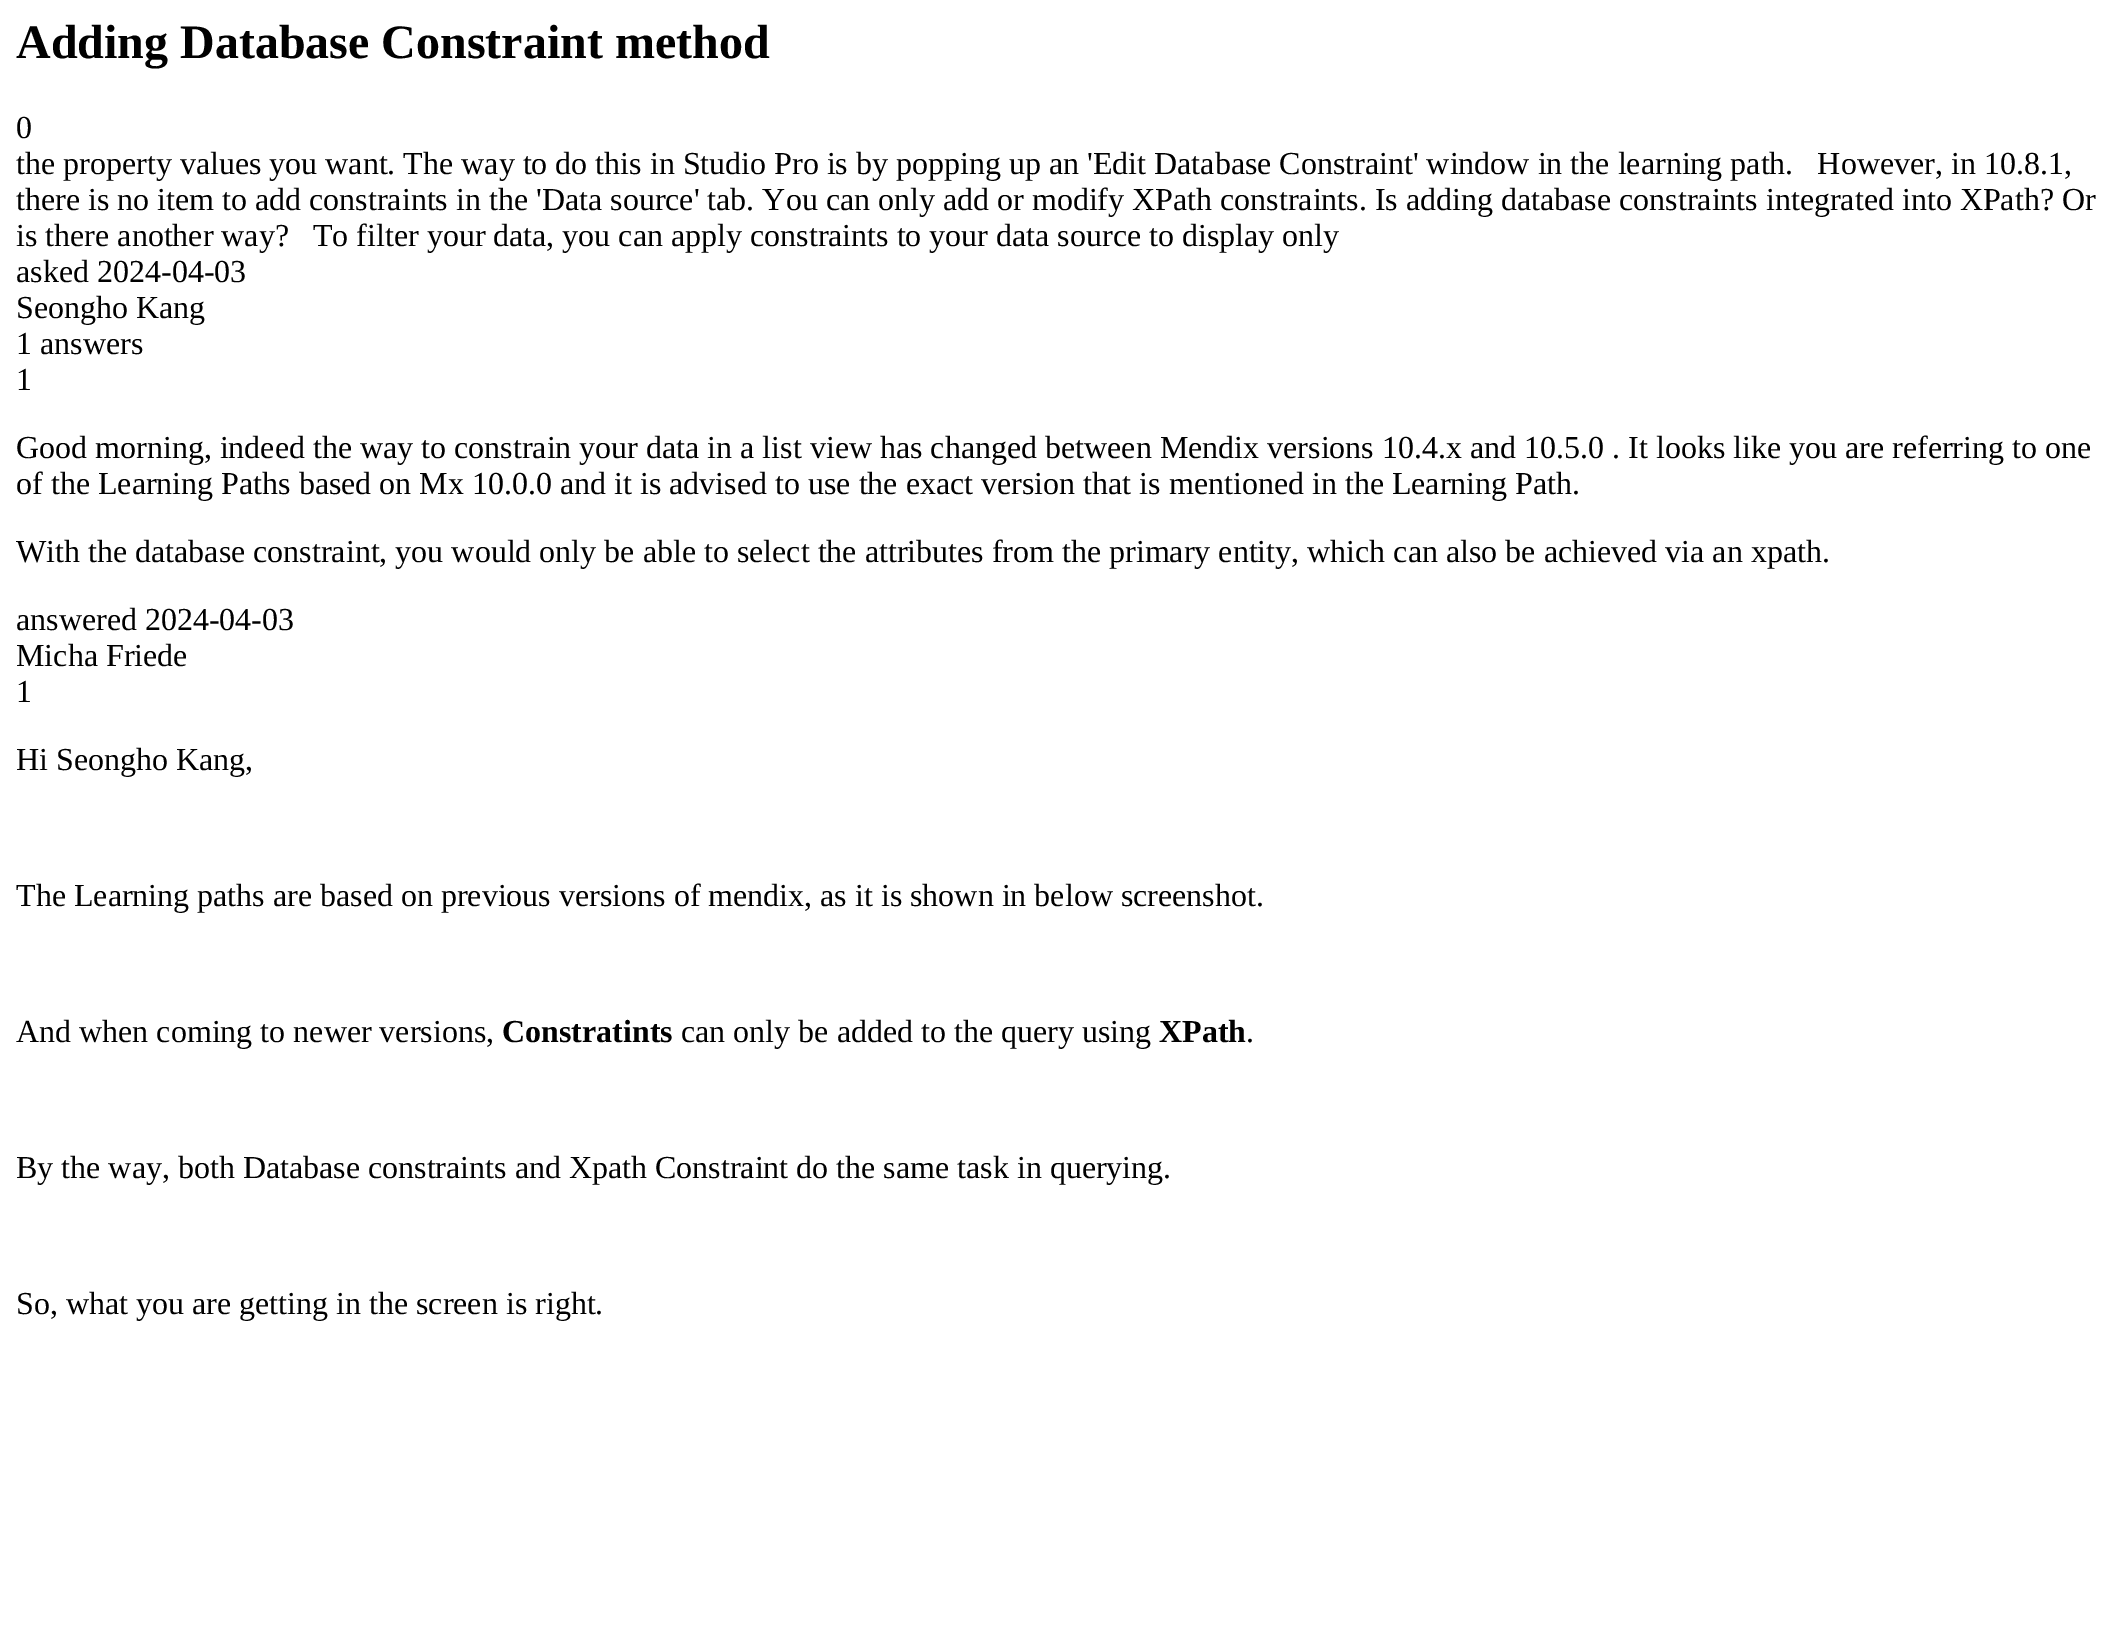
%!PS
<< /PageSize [2127 1635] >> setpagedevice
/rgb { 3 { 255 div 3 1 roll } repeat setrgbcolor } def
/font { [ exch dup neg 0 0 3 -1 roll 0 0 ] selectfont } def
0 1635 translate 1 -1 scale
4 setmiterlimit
255 255 255 rgb
0 0 2127 1635 rectfill
/LiberationSerif-Bold 48 font
0 0 0 rgb
16 58 moveto (Adding Database Constraint method) show
/LiberationSerif-Regular 32 font
[
  [(0) 16 138]
  [(the property values you want. The way to do this in Studio Pro is by popping up an 'Edit Database Constraint' window in the learning path.   However, in 10.8.1,) 16 174]
  [(there is no item to add constraints in the 'Data source' tab. You can only add or modify XPath constraints. Is adding database constraints integrated into XPath? Or) 16 210]
  [(is there another way?   To filter your data, you can apply constraints to your data source to display only) 16 246]
  [(asked 2024-04-03) 16 282]
  [(Seongho Kang) 16 318]
  [(1 answers) 16 354]
  [(1) 16 390]
  [(Good morning, indeed the way to constrain your data in a list view has changed between Mendix versions 10.4.x and 10.5.0 . It looks like you are referring to one) 16 458]
  [(of the Learning Paths based on Mx 10.0.0 and it is advised to use the exact version that is mentioned in the Learning Path.) 16 494]
  [(With the database constraint, you would only be able to select the attributes from the primary entity, which can also be achieved via an xpath.) 16 562]
  [(answered 2024-04-03) 16 630]
  [(Micha Friede) 16 666]
  [(1) 16 702]
  [(Hi Seongho Kang,) 16 770]
  [(The Learning paths are based on previous versions of mendix, as it is shown in below screenshot.) 16 906]
  [(And when coming to newer versions,) 16 1042]
] { aload pop moveto show } forall
/LiberationSerif-Bold 32 font
502 1042 moveto (Constratints) show
/LiberationSerif-Regular 32 font
681 1042 moveto (can only be added to the query using) show
/LiberationSerif-Bold 32 font
1159 1042 moveto (XPath) show
/LiberationSerif-Regular 32 font
[
  [(.) 1246 1042]
  [(By the way, both Database constraints and Xpath Constraint do the same task in querying.) 16 1178]
  [(So, what you are getting in the screen is right.) 16 1314]
] { aload pop moveto show } forall
showpage
